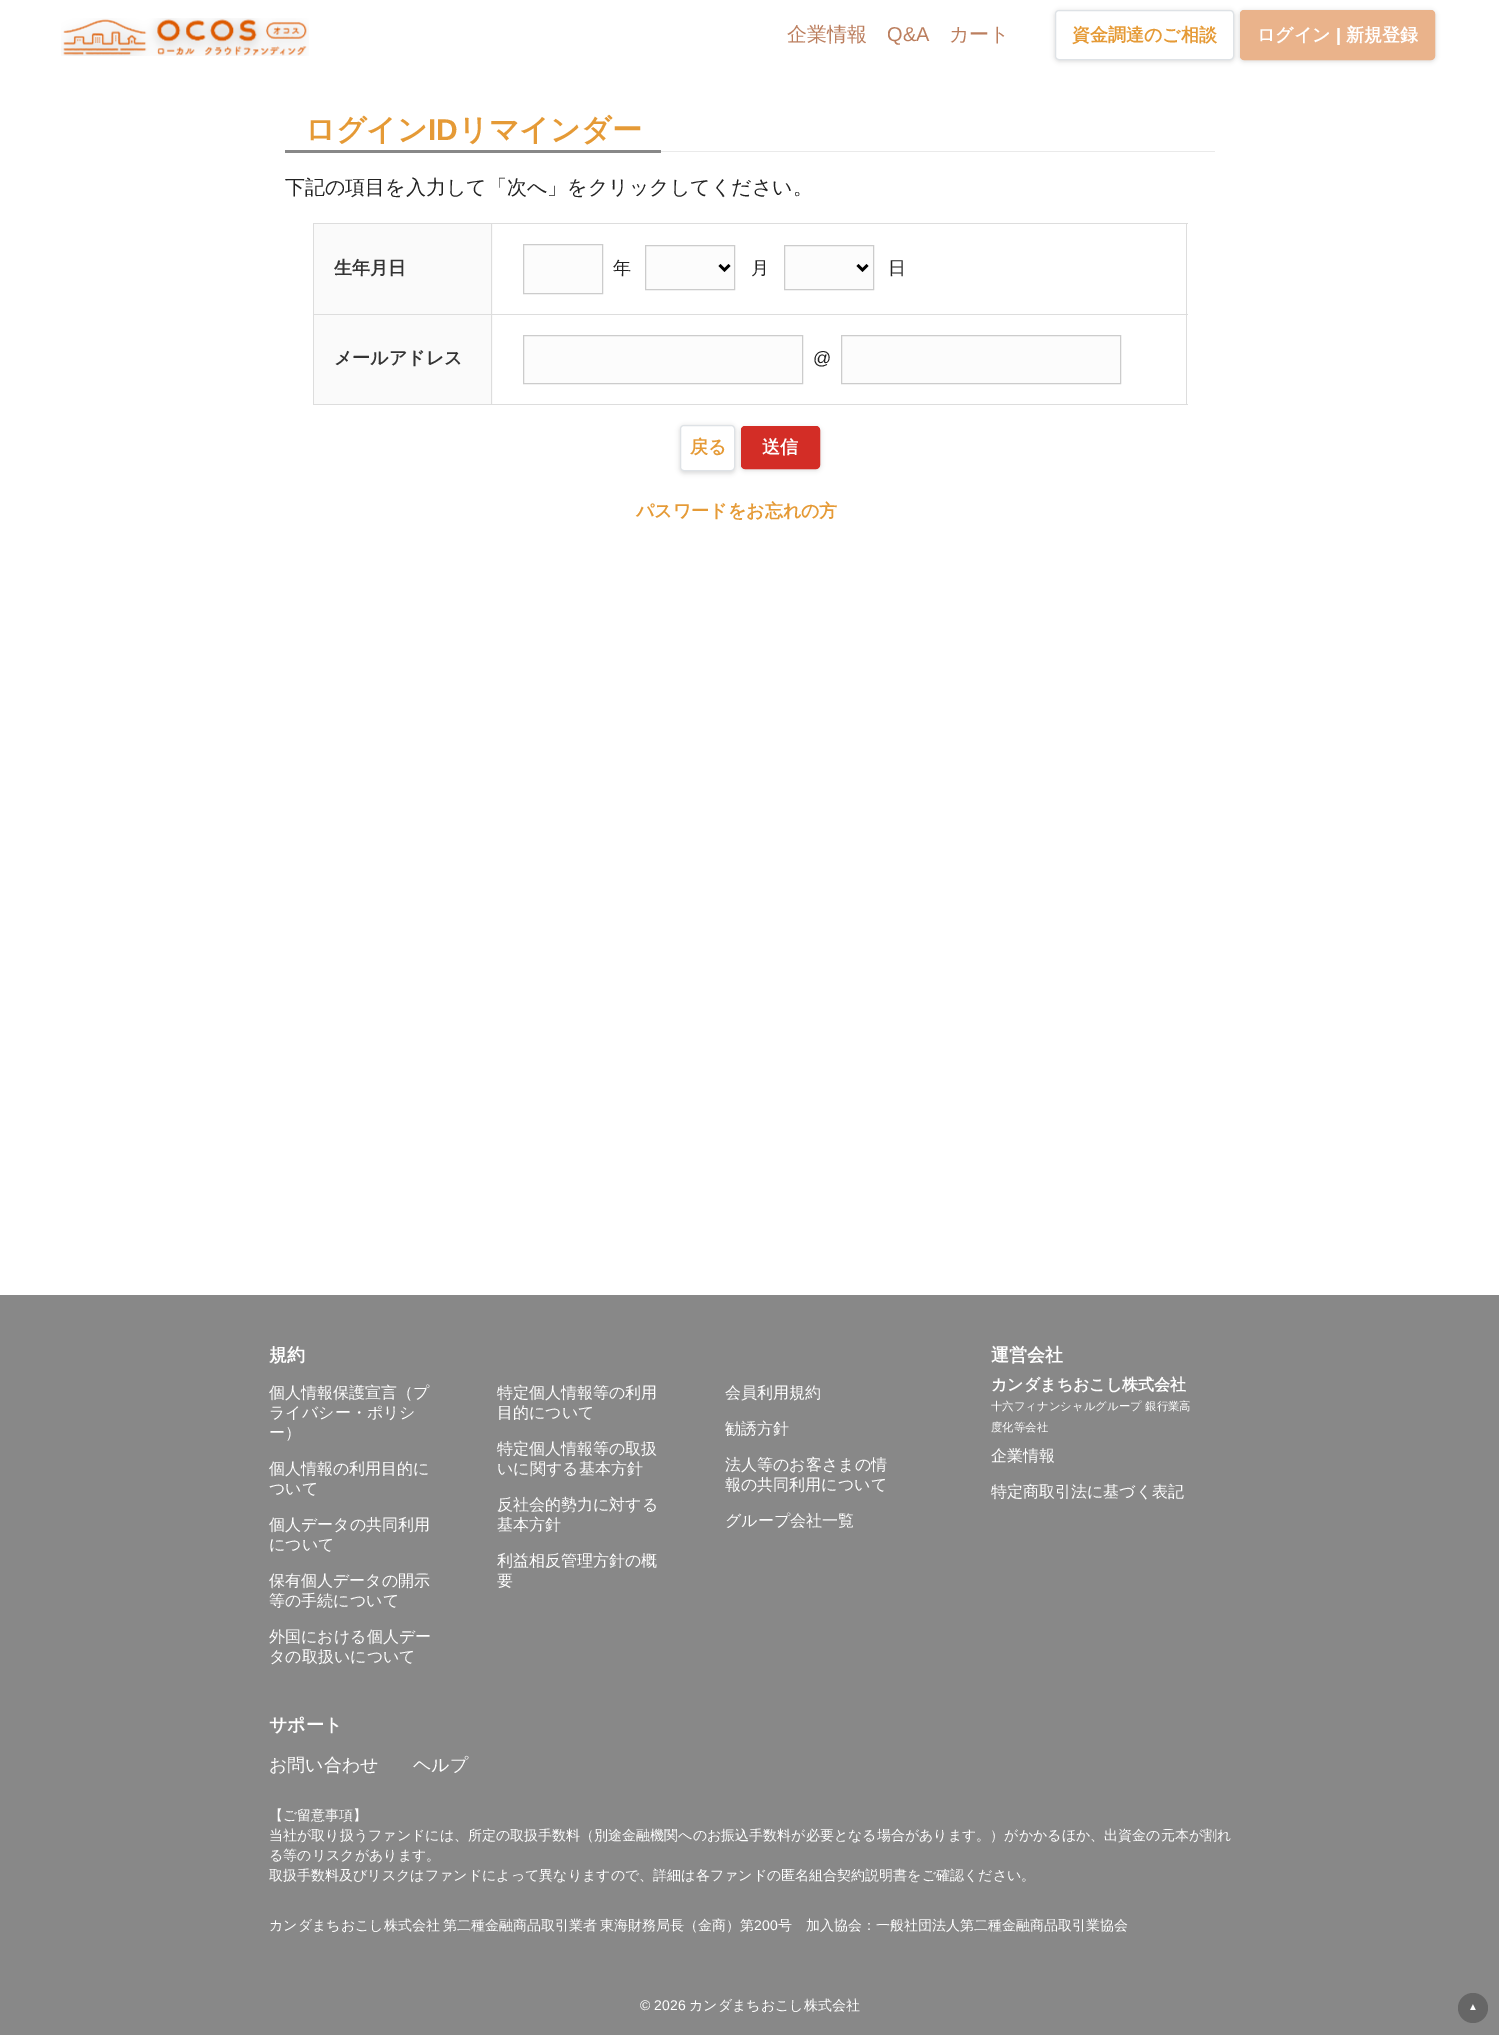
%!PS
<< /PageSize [1499 2035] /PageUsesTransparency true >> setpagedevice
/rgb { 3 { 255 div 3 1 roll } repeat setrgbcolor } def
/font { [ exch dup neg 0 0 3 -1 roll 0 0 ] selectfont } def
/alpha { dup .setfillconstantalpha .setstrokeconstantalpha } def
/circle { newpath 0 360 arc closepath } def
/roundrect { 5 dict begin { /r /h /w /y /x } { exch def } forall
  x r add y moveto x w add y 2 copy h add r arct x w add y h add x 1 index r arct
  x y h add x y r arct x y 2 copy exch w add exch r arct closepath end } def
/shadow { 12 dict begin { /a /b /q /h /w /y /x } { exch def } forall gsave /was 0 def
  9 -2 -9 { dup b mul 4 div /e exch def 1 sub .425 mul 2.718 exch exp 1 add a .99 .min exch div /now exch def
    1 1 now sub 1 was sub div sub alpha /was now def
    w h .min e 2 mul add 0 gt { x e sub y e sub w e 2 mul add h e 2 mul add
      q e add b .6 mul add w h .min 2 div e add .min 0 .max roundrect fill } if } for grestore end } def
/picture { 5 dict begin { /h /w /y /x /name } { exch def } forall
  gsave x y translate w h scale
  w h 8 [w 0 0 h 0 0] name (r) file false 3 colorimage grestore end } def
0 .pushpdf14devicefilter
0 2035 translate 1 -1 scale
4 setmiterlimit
255 255 255 rgb
0 0 1499 2035 rectfill
(img/1.rgb) 61 18 248 38 picture
0 0 0 rgb
1055 11 179 50 4 2.5 0.15 shadow
255 255 255 rgb
1055.5 10.5 178 49 3.5 roundrect gsave fill grestore
222 226 230 rgb
stroke
0 0 0 rgb
1240 11 195 50 4 2.5 0.15 shadow
234 179 139 rgb
1240.5 10.5 194 49 3.5 roundrect gsave fill grestore
stroke
[
  [661 151 554 1 234 234 234]
  [285 150 376 3 136 136 136]
  [314 224 179 90 250 250 250]
  [491 223 697 1 221 221 221]
  [491 314 697 1 221 221 221]
  [314 315 179 89 250 250 250]
  [1186 314 1 91 221 221 221]
  [491 404 697 1 221 221 221]
  [491 314 1 91 221 221 221]
  [313 314 180 1 221 221 221]
  [491 223 1 92 221 221 221]
  [313 223 180 1 221 221 221]
  [313 404 180 1 221 221 221]
  [313 314 1 91 221 221 221]
  [313 223 1 92 221 221 221]
  [1186 223 1 92 221 221 221]
] { aload pop rgb rectfill } forall
252 252 252 rgb
523.5 244.5 moveto 602.5 244.5 lineto 602.5 293.5 lineto 523.5 293.5 lineto closepath gsave fill grestore
204 204 204 rgb
stroke
252 252 252 rgb
645.5 245.5 moveto 734.5 245.5 lineto 734.5 289.5 lineto 645.5 289.5 lineto closepath gsave fill grestore
204 204 204 rgb
stroke
0 0 0 rgb
2.5 setlinewidth
719.5 265 moveto 724.5 270 lineto 729.5 265 lineto stroke
252 252 252 rgb
784.5 245.5 moveto 873.5 245.5 lineto 873.5 289.5 lineto 784.5 289.5 lineto closepath gsave fill grestore
204 204 204 rgb
1 setlinewidth
stroke
0 0 0 rgb
2.5 setlinewidth
857.5 265 moveto 862.5 270 lineto 867.5 265 lineto stroke
252 252 252 rgb
523.5 335.5 moveto 802.5 335.5 lineto 802.5 383.5 lineto 523.5 383.5 lineto closepath gsave fill grestore
204 204 204 rgb
1 setlinewidth
stroke
252 252 252 rgb
841.5 335.5 moveto 1120.5 335.5 lineto 1120.5 383.5 lineto 841.5 383.5 lineto closepath gsave fill grestore
204 204 204 rgb
stroke
0 0 0 rgb
680 426 55 47 4 2.5 0.15 shadow
255 255 255 rgb
680.5 425.5 54 45 3.5 roundrect gsave fill grestore
222 226 230 rgb
stroke
0 0 0 rgb
741 428 79 42 4 2.5 0.15 shadow
211 45 38 rgb
741.5 426.5 78 42 3.5 roundrect gsave fill grestore
stroke
136 136 136 rgb
0 1295 1499 740 rectfill
102 102 102 rgb
1473 2008 15 circle fill
/WenQuanYiZenHei-Medium 20 font
187 126 94 rgb
787 41 moveto (企業情報) show
/LiberationSans-Regular 20 font
887 41 moveto (Q&A) show
/WenQuanYiZenHei-Medium 20 font
949 41 moveto (カート) show
/WenQuanYiZenHei-Bold 18 font
229 154 54 rgb
1072 41 moveto (資金調達のご相談) show
255 255 255 rgb
1257 41 moveto (ログイン) show
/LiberationSans-Bold 18 font
1336 41 moveto (|) show
/WenQuanYiZenHei-Bold 18 font
1346 41 moveto (新規登録) show
/WenQuanYiZenHei-Bold 30 font
229 154 54 rgb
305 140 moveto (ログイン) show
/LiberationSans-Bold 30 font
428 140 moveto (ID) show
/WenQuanYiZenHei-Bold 30 font
458 140 moveto (リマインダー) show
/WenQuanYiZenHei-Medium 20 font
34 34 34 rgb
285 194 moveto (下記の項目を入力して「次へ」をクリックしてください。) show
/WenQuanYiZenHei-Bold 18 font
51 51 51 rgb
334 274 moveto (生年月日) show
/WenQuanYiZenHei-Medium 18 font
34 34 34 rgb
[
  [(年) 613 274]
  [(月) 751 274]
  [(日) 888 274]
] { aload pop moveto show } forall
/WenQuanYiZenHei-Bold 18 font
51 51 51 rgb
334 364 moveto (メールアドレス) show
/LiberationSans-Regular 18 font
34 34 34 rgb
813 364 moveto (@) show
/WenQuanYiZenHei-Bold 18 font
229 154 54 rgb
690 453 moveto (戻る) show
255 255 255 rgb
762 453 moveto (送信) show
229 154 54 rgb
636 517 moveto (パスワードをお忘れの方) show
255 255 255 rgb
269 1361 moveto (規約) show
/WenQuanYiZenHei-Medium 16 font
[
  [(個人情報保護宣言（プ) 269 1398]
  [(ライバシー・ポリシ) 269 1418]
  [(ー）) 269 1438]
  [(個人情報の利用目的に) 269 1474]
  [(ついて) 269 1494]
  [(個人データの共同利用) 269 1530]
  [(について) 269 1550]
  [(保有個人データの開示) 269 1586]
  [(等の手続について) 269 1606]
  [(外国における個人デー) 269 1642]
  [(タの取扱いについて) 269 1662]
  [(特定個人情報等の利用) 497 1398]
  [(目的について) 497 1418]
  [(特定個人情報等の取扱) 497 1454]
  [(いに関する基本方針) 497 1474]
  [(反社会的勢力に対する) 497 1510]
  [(基本方針) 497 1530]
  [(利益相反管理方針の概) 497 1566]
  [(要) 497 1586]
  [(会員利用規約) 725 1398]
  [(勧誘方針) 725 1434]
  [(法人等のお客さまの情) 725 1470]
  [(報の共同利用について) 725 1490]
  [(グループ会社一覧) 725 1526]
] { aload pop moveto show } forall
/WenQuanYiZenHei-Bold 18 font
991 1361 moveto (運営会社) show
/WenQuanYiZenHei-Bold 16 font
991 1390 moveto (カンダまちおこし株式会社) show
/WenQuanYiZenHei-Medium 11.4 font
991 1410 moveto (十六フィナンシャルグループ 銀行業高) show
991 1431 moveto (度化等会社) show
/WenQuanYiZenHei-Medium 16 font
991 1461 moveto (企業情報) show
991 1497 moveto (特定商取引法に基づく表記) show
/WenQuanYiZenHei-Bold 18 font
269 1731 moveto (サポート) show
/WenQuanYiZenHei-Medium 18 font
269 1771 moveto (お問い合わせ) show
413 1771 moveto (ヘルプ) show
/WenQuanYiZenHei-Medium 14 font
[
  [(【ご留意事項】) 269 1820]
  [(当社が取り扱うファンドには、所定の取扱手数料（別途金融機関へのお振込手数料が必要となる場合があります。）がかかるほか、出資金の元本が割れ) 269 1840]
  [(る等のリスクがあります。) 269 1860]
  [(取扱手数料及びリスクはファンドによって異なりますので、詳細は各ファンドの匿名組合契約説明書をご確認ください。) 269 1880]
] { aload pop moveto show } forall
269 1930 moveto -1 0 32 (カンダまちおこし株式会社 第二種金融商品取引業者 東海財務局長（金商）第) widthshow
/LiberationSans-Regular 14 font
754 1930 moveto (200) show
/WenQuanYiZenHei-Medium 14 font
778 1930 moveto (号　加入協会：一般社団法人第二種金融商品取引業協会) show
/LiberationSans-Regular 14 font
640 2010 moveto (© 2026) show
/WenQuanYiZenHei-Medium 14 font
689 2010 moveto (カンダまちおこし株式会社) show
/LiberationSans-Regular 10 font
1468 2010 moveto (▲) show
.poppdf14devicefilter showpage
